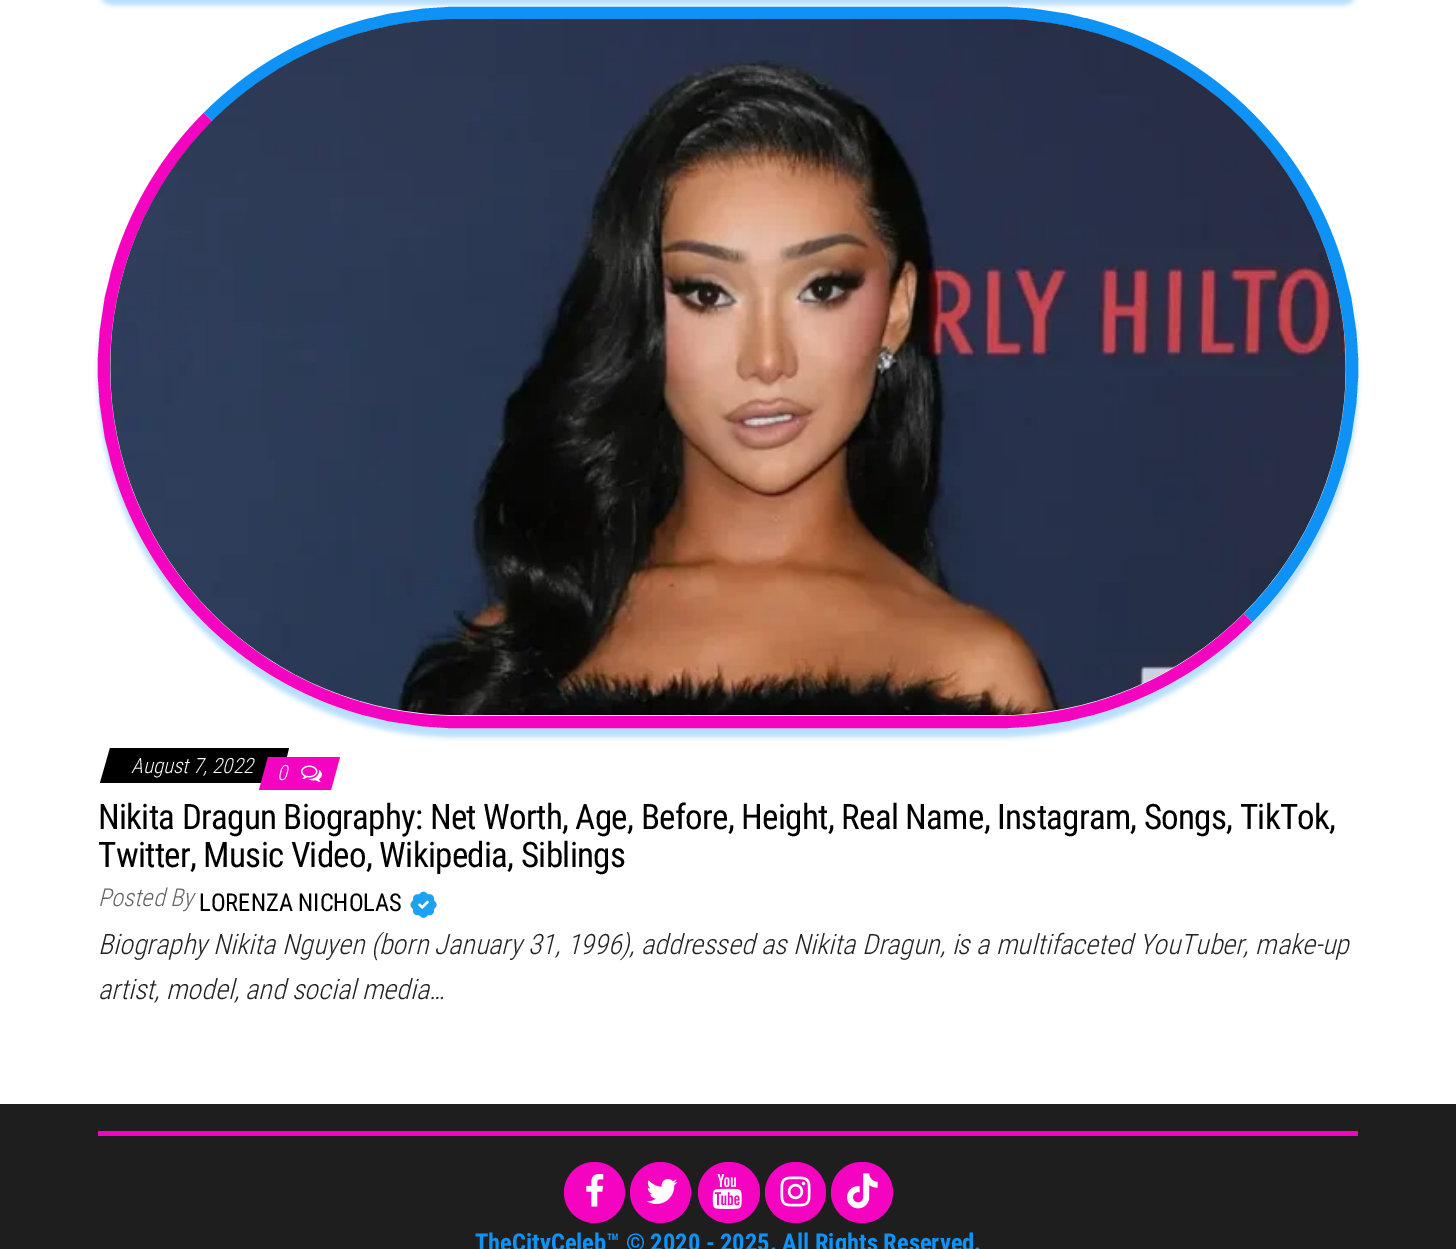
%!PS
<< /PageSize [1456 1249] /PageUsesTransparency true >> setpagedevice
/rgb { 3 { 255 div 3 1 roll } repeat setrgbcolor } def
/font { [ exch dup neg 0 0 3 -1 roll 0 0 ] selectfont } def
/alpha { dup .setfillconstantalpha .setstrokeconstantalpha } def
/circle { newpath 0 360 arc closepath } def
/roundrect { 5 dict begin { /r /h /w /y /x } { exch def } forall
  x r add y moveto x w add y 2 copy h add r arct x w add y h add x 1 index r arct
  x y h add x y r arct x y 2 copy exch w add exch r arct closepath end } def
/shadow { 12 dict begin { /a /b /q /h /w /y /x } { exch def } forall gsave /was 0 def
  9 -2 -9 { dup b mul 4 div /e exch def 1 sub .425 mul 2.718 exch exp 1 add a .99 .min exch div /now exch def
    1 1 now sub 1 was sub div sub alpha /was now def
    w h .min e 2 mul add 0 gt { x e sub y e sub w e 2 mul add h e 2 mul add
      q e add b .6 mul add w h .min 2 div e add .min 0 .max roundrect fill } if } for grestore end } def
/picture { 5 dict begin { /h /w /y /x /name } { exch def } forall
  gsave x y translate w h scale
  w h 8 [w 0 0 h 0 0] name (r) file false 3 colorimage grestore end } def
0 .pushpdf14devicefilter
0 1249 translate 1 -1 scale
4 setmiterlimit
255 255 255 rgb
0 0 1456 1249 rectfill
14 146 245 rgb
98 -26 1260 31 18 2.5 0.3 shadow
98 16 1260 721 360.5 2.5 0.3 shadow
12.2 setlinewidth
208 117 moveto 274.5 50.5 364.5 13 458.5 13 curveto 997.5 13 lineto 1091.5 13 1181.5 50.5 1248 117 curveto 1314.5 183.5 1352 273.5 1352 367.5 curveto 1352 461.5 1314.5 551.5 1248 618 curveto stroke
244 4 192 rgb
1248 618 moveto 1181.5 684.5 1091.5 722 997.5 722 curveto 458.5 722 lineto 364.5 722 274.5 684.5 208 618 curveto 141.5 551.5 104 461.5 104 367.5 curveto 104 273.5 141.5 183.5 208 117 curveto stroke
(img/1.rgb) 110 18 1236 698 picture
0 0 0 rgb
110 748 moveto 289 748 lineto 280 783 lineto 100 783 lineto closepath fill
244 4 192 rgb
268 757 moveto 340 757 lineto 331 790 lineto 259 790 lineto closepath fill
(img/2.rgb) 301 765 21 17 picture
(img/3.rgb) 410 891 27 27 picture
30 30 30 rgb
0 1104 1456 145 rectfill
244 4 192 rgb
98 1131 1260 5 rectfill
594.5 1192.5 30.5 circle fill
(img/4.rgb) 586 1174 18 33 picture
660.5 1192.5 30.5 circle fill
(img/5.rgb) 646 1179 32 25 picture
698 1162 62 61 30.5 roundrect fill
(img/6.rgb) 712 1174 30 35 picture
795.5 1192.5 30.5 circle fill
(img/7.rgb) 780 1176 31 31 picture
831 1162 62 61 30.5 roundrect fill
(img/8.rgb) 847 1173 31 36 picture
/RobotoCondensed-LightItalic 21 font
255 255 255 rgb
131 773 moveto (August 7, 2022) show
277 780 moveto (0) show
/RobotoCondensed-Regular 35 font
0 0 0 rgb
98 829 moveto -0.1 0 32 -0.7 0 (Nikita Dragun Biography: Net Worth, Age, Before, Height, Real Name, Instagram, Songs, TikTok,) awidthshow
98 867 moveto -0.1 0 32 -0.7 0 (Twitter, Music Video, Wikipedia, Siblings) awidthshow
/RobotoCondensed-LightItalic 24.5 font
100 100 100 rgb
98 906 moveto (Posted By) show
/RobotoCondensed-Regular 24.5 font
0 0 0 rgb
199 911 moveto (LORENZA NICHOLAS) show
/RobotoCondensed-LightItalic 28 font
34 34 34 rgb
98 954 moveto (Biography Nikita Nguyen \(born January 31, 1996\), addressed as Nikita Dragun, is a multifaceted YouTuber, make-up) show
98 999 moveto (artist, model, and social media…) show
/RobotoCondensed-Bold 24.5 font
14 146 245 rgb
475 1251 moveto (TheCityCeleb™ © 2020 -) show
720 1251 moveto (2025. All Rights Reserved.) show
.poppdf14devicefilter showpage
